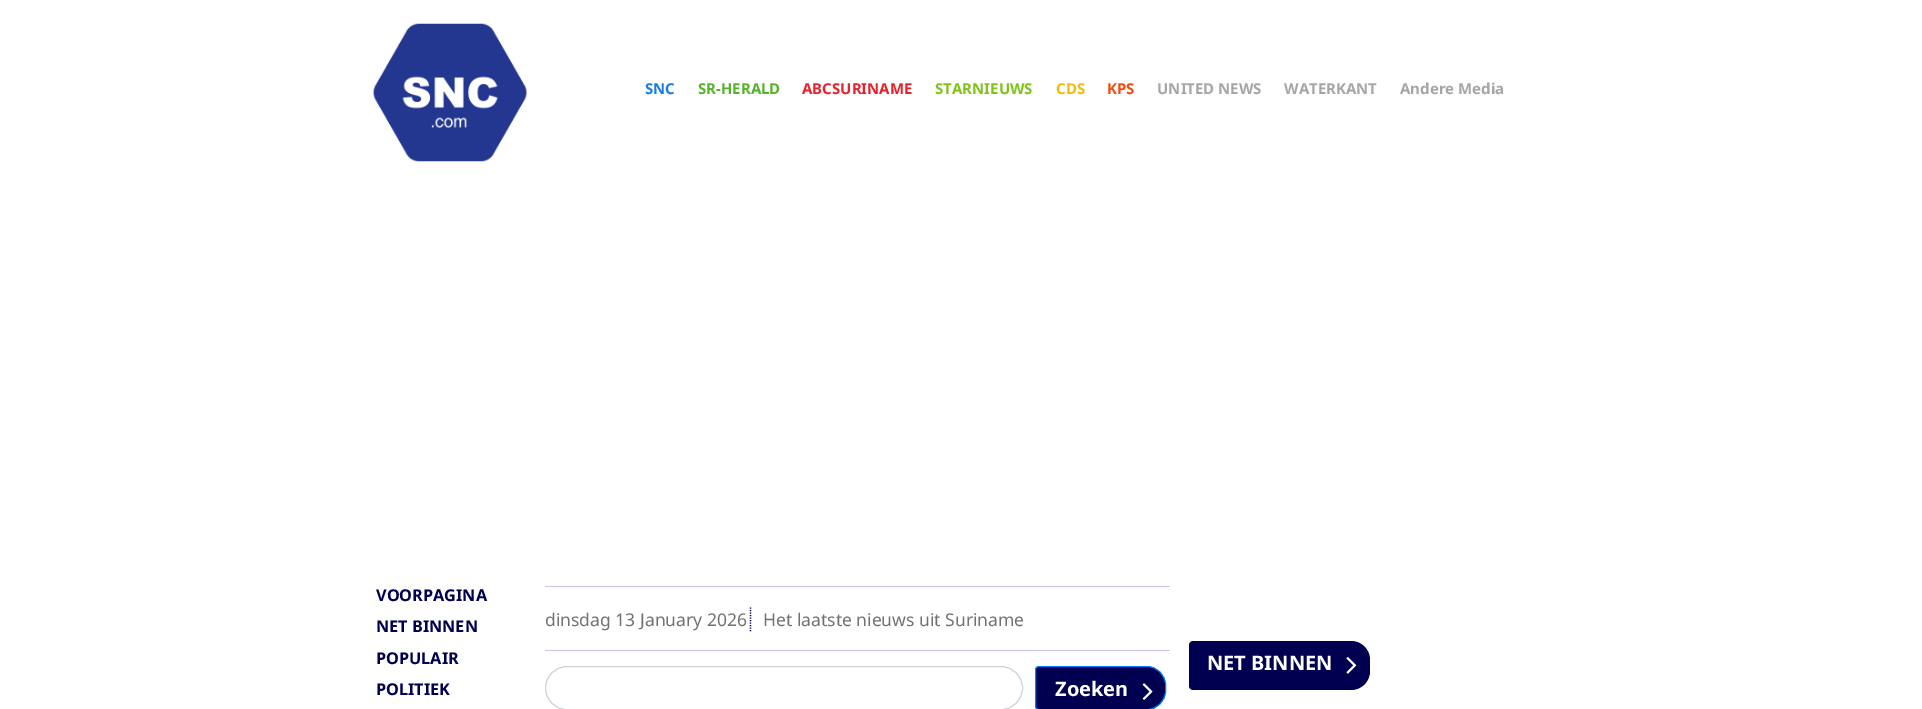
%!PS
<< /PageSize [1922 709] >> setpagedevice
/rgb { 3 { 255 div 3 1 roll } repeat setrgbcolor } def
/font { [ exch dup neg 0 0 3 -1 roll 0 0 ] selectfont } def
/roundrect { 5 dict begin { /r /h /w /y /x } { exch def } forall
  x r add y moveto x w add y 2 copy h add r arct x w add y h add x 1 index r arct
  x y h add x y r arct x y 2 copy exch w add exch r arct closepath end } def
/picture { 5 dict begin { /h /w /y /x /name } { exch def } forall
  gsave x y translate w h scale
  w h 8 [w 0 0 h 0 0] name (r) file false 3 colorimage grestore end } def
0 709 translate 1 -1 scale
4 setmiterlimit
255 255 255 rgb
0 0 1922 709 rectfill
(img/1.rgb) 373 23 154 139 picture
200 198 235 rgb
545 586 625 1 rectfill
545 650 625 1 rectfill
1 0 80 rgb
1.2 setlinewidth
[1.25 1.25] 0 setdash
750.5 607.5 moveto 750.5 632.5 lineto stroke
206 212 218 rgb
1 setlinewidth
[] 0 setdash
545.5 666.5 477 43 21.5 roundrect stroke
1 0 80 rgb
1039 666.5 moveto 1147 666.5 lineto 1157 666.5 1165.5 675 1165.5 685 curveto 1165.5 691 lineto 1165.5 701 1157 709.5 1147 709.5 curveto 1039 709.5 lineto 1037 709.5 1035.5 708 1035.5 706 curveto 1035.5 670 lineto 1035.5 668 1037 666.5 1039 666.5 curveto closepath gsave fill grestore
0 123 255 rgb
stroke
(img/2.rgb) 1142 683 11 17 picture
1 0 80 rgb
1193 641 moveto 1351 641 lineto 1361.5 641 1370 649.5 1370 660 curveto 1370 671 lineto 1370 681.5 1361.5 690 1351 690 curveto 1193 690 lineto 1191 690 1189 688 1189 686 curveto 1189 645 lineto 1189 643 1191 641 1193 641 curveto closepath fill
(img/3.rgb) 1346 657 11 17 picture
/NotoSans-Bold 15 font
24 125 231 rgb
645 94 moveto (SNC) show
85 179 41 rgb
698 94 moveto (SR-HERALD) show
231 34 44 rgb
802 94 moveto (ABCSURINAME) show
128 194 24 rgb
935 94 moveto (STARNIEUWS) show
243 187 16 rgb
1056 94 moveto (CDS) show
239 78 14 rgb
1107 94 moveto (KPS) show
166 166 166 rgb
[
  [(UNITED NEWS) 1157 94]
  [(WATERKANT) 1284 94]
  [(Andere Media) 1400 94]
] { aload pop moveto show } forall
/NotoSans-Bold 16.25 font
1 0 80 rgb
[
  [(VOORPAGINA) 376 601]
  [(NET BINNEN) 376 632]
  [(POPULAIR) 376 664]
  [(POLITIEK) 376 695]
] { aload pop moveto show } forall
/NotoSans-Regular 17.5 font
114 114 114 rgb
545 626 moveto (dinsdag 13 January 2026) show
763 626 moveto (Het laatste nieuws uit Suriname) show
/NotoSans-Bold 20 font
255 255 255 rgb
1055 696 moveto (Zoeken) show
1207 670 moveto (NET BINNEN) show
showpage
